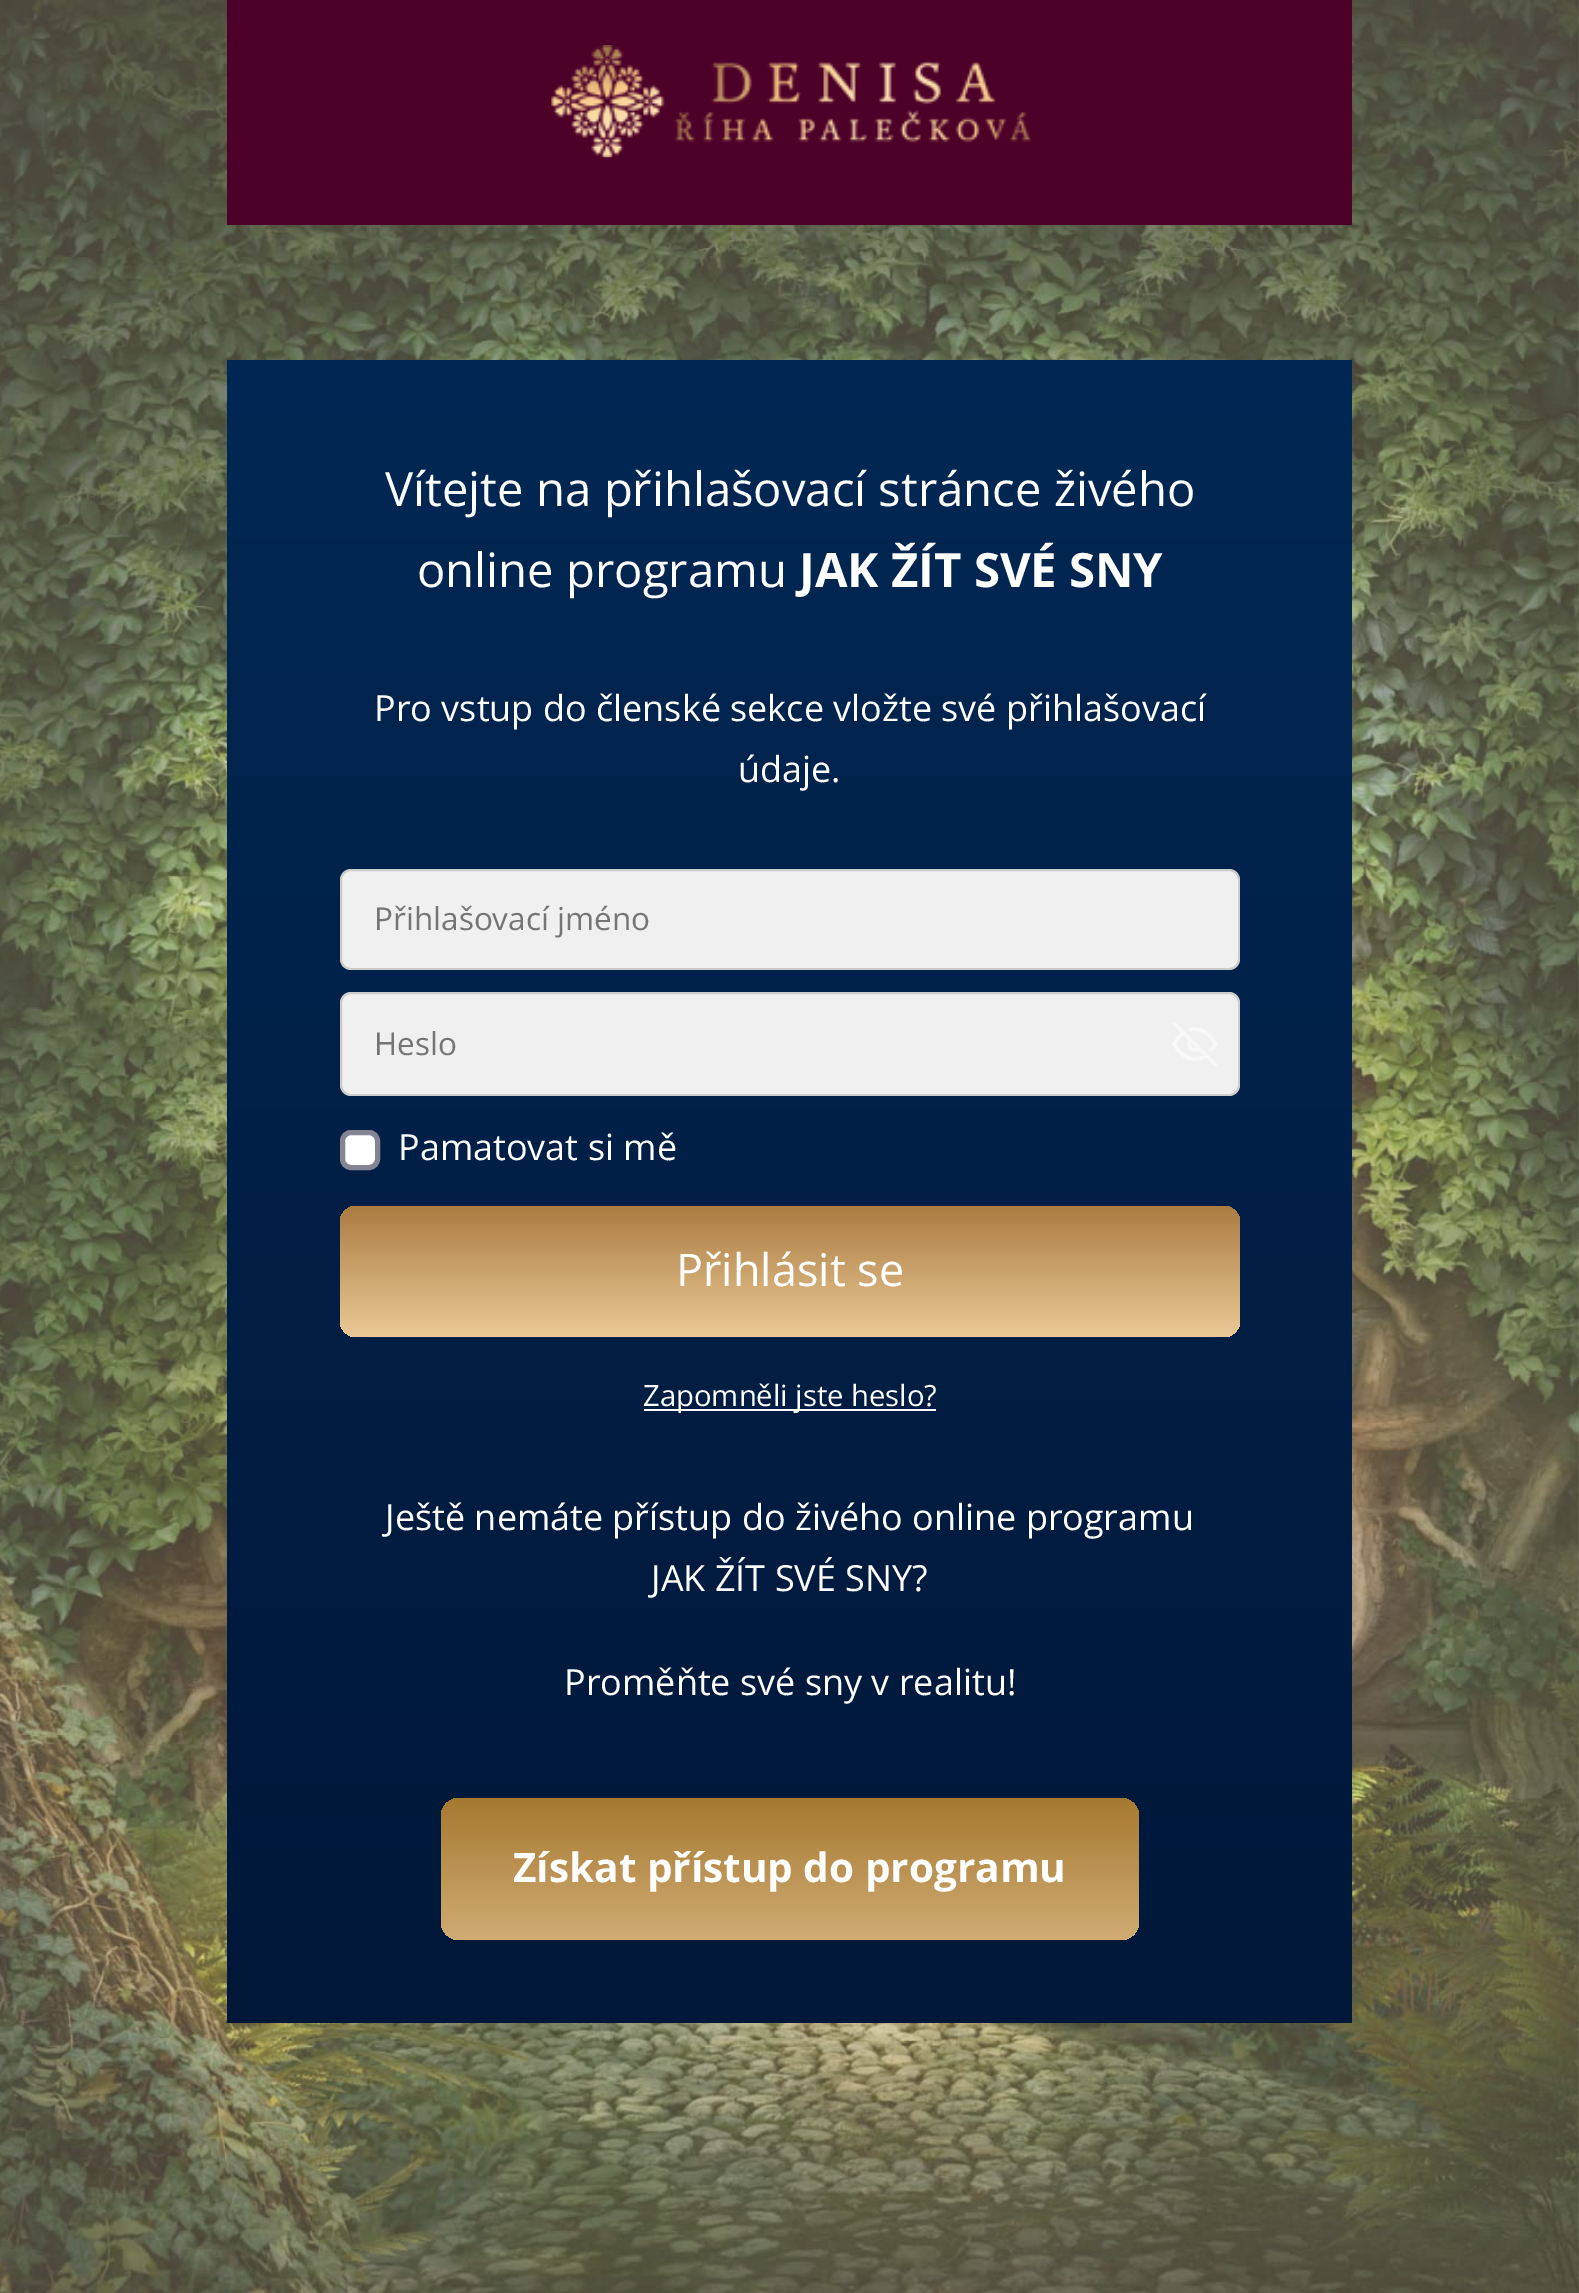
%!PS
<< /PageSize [1579 2293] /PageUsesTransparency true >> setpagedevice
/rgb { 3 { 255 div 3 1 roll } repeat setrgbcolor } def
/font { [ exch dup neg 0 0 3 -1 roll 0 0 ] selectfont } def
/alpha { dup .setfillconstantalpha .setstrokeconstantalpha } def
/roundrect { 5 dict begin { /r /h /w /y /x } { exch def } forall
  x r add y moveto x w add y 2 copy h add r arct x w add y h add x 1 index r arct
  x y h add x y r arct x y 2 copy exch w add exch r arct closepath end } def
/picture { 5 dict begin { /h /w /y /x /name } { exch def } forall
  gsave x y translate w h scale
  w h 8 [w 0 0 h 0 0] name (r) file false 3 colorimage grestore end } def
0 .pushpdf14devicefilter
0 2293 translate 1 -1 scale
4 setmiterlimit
255 255 255 rgb
0 0 1579 2293 rectfill
(img/1.rgb) 0 0 1579 2293 picture
77 0 40 rgb
227 0 1125 225 rectfill
(img/2.rgb) 551 45 480 113 picture
gsave 227 360 moveto 1352 360 lineto 1352 2023 lineto 227 2023 lineto closepath clip newpath
<< /ShadingType 2 /ColorSpace /DeviceRGB /Coords [790 360 790 2023] /Extend [true true] /Function << /FunctionType 2 /Domain [0 1] /C0 [0 0.157 0.329] /C1 [0 0.09 0.22] /N 1 >> >> shfill grestore
240 240 240 rgb
340 869 900 101 11 roundrect fill
0.15 alpha
0 0 0 rgb
2 setlinewidth
341 870 898 99 10 roundrect stroke
1 alpha
240 240 240 rgb
340 992 900 104 11 roundrect fill
0.15 alpha
0 0 0 rgb
341 993 898 102 10 roundrect stroke
1 alpha
(img/3.rgb) 1172 1022 45 44 picture
255 255 255 rgb
342.5 1132.5 35 35 8.5 roundrect gsave fill grestore
132 132 146 rgb
5 setlinewidth
stroke
gsave 340 1206 900 131 16 roundrect clip newpath
<< /ShadingType 2 /ColorSpace /DeviceRGB /Coords [790 1206 790 1337] /Extend [true true] /Function << /FunctionType 2 /Domain [0 1] /C0 [0.671 0.486 0.259] /C1 [0.922 0.788 0.588] /N 1 >> >> shfill grestore
255 255 255 rgb
644 1409 292 2 rectfill
gsave 441 1798 698 142 18 roundrect clip newpath
<< /ShadingType 2 /ColorSpace /DeviceRGB /Coords [790 1798 790 1940] /Extend [true true] /Function << /FunctionType 2 /Domain [0 1] /C0 [0.651 0.475 0.192] /C1 [0.816 0.671 0.451] /N 1 >> >> shfill grestore
/OpenSans-Regular 47.25 font
385 506 moveto (Vítejte na přihlašovací stránce živého) show
417 587 moveto (online programu) show
/OpenSans-Bold 47.25 font
799 587 moveto (JAK ŽÍT SVÉ SNY) show
/OpenSans-Regular 36 font
374 721 moveto (Pro vstup do členské sekce vložte své přihlašovací) show
738 782 moveto (údaje.) show
/OpenSans-Regular 31.5 font
117 117 117 rgb
374 930 moveto (Přihlašovací jméno) show
374 1055 moveto (Heslo) show
/OpenSans-Regular 36 font
255 255 255 rgb
398 1160 moveto (Pamatovat si mě) show
/OpenSans-Regular 45 font
676 1286 moveto (Přihlásit se) show
/OpenSans-Regular 29.25 font
643 1406 moveto (Zapomněli jste heslo?) show
/OpenSans-Regular 36 font
[
  [(Ještě nemáte přístup do živého online programu) 385 1530]
  [(JAK ŽÍT SVÉ SNY?) 651 1591]
  [(Proměňte své sny v realitu!) 564 1695]
] { aload pop moveto show } forall
/OpenSans-Bold 40.5 font
513 1882 moveto (Získat přístup do programu) show
.poppdf14devicefilter showpage
